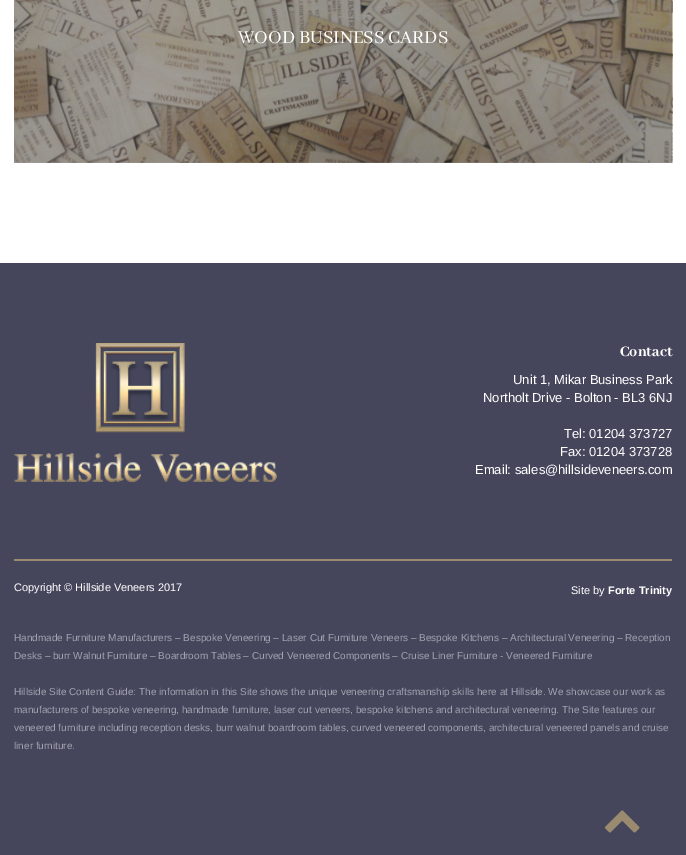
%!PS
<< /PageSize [686 855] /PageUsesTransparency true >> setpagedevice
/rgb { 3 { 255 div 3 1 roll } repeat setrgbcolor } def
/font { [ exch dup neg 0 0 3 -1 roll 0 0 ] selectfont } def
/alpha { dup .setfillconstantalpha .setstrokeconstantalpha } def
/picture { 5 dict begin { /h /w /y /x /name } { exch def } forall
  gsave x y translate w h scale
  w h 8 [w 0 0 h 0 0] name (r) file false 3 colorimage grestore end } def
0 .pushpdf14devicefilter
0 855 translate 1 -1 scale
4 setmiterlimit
255 255 255 rgb
0 0 686 855 rectfill
(img/1.rgb) 14 0 659 163 picture
0.3 alpha
[
  [14 0 658 163 0 0 0]
] { aload pop rgb rectfill } forall
1 alpha
[
  [0 263 686 592 69 70 92]
  [14 559 658 2 154 139 112]
] { aload pop rgb rectfill } forall
(img/2.rgb) 14 343 263 139 picture
(img/3.rgb) 605 810 35 23 picture
/AbhayaLibre-Regular 20 font
255 255 255 rgb
238 43 moveto (WOOD BUSINESS CARDS) show
/AbhayaLibreExtraBold-ExtraBold 16 font
620 356 moveto (Contact) show
/LiberationSans-Regular 13 font
[
  [(Unit 1, Mikar Business Park) 513 384]
  [(Northolt Drive - Bolton - BL3 6NJ) 483 402]
  [(Tel: 01204 373727) 564 438]
  [(Fax: 01204 373728) 560 456]
  [(Email: sales@hillsideveneers.com) 475 474]
] { aload pop moveto show } forall
/LiberationSans-Regular 11 font
14 591 moveto (Copyright © Hillside Veneers 2017) show
571 594 moveto (Site by) show
/LiberationSans-Bold 11 font
608 594 moveto (Forte Trinity) show
/LiberationSans-Regular 10 font
162 163 174 rgb
[
  [(Handmade Furniture Manufacturers – Bespoke Veneering – Laser Cut Furniture Veneers – Bespoke Kitchens – Architectural Veneering – Reception) 14 641]
  [(Desks – burr Walnut Furniture – Boardroom Tables – Curved Veneered Components – Cruise Liner Furniture - Veneered Furniture) 14 659]
  [(Hillside Site Content Guide: The information in this Site shows the unique veneering craftsmanship skills here at Hillside. We showcase our work as) 14 695]
  [(manufacturers of bespoke veneering, handmade furniture, laser cut veneers, bespoke kitchens and architectural veneering. The Site features our) 14 713]
  [(veneered furniture including reception desks, burr walnut boardroom tables, curved veneered components, architectural veneered panels and cruise) 14 731]
  [(liner furniture.) 14 749]
] { aload pop moveto show } forall
.poppdf14devicefilter showpage
